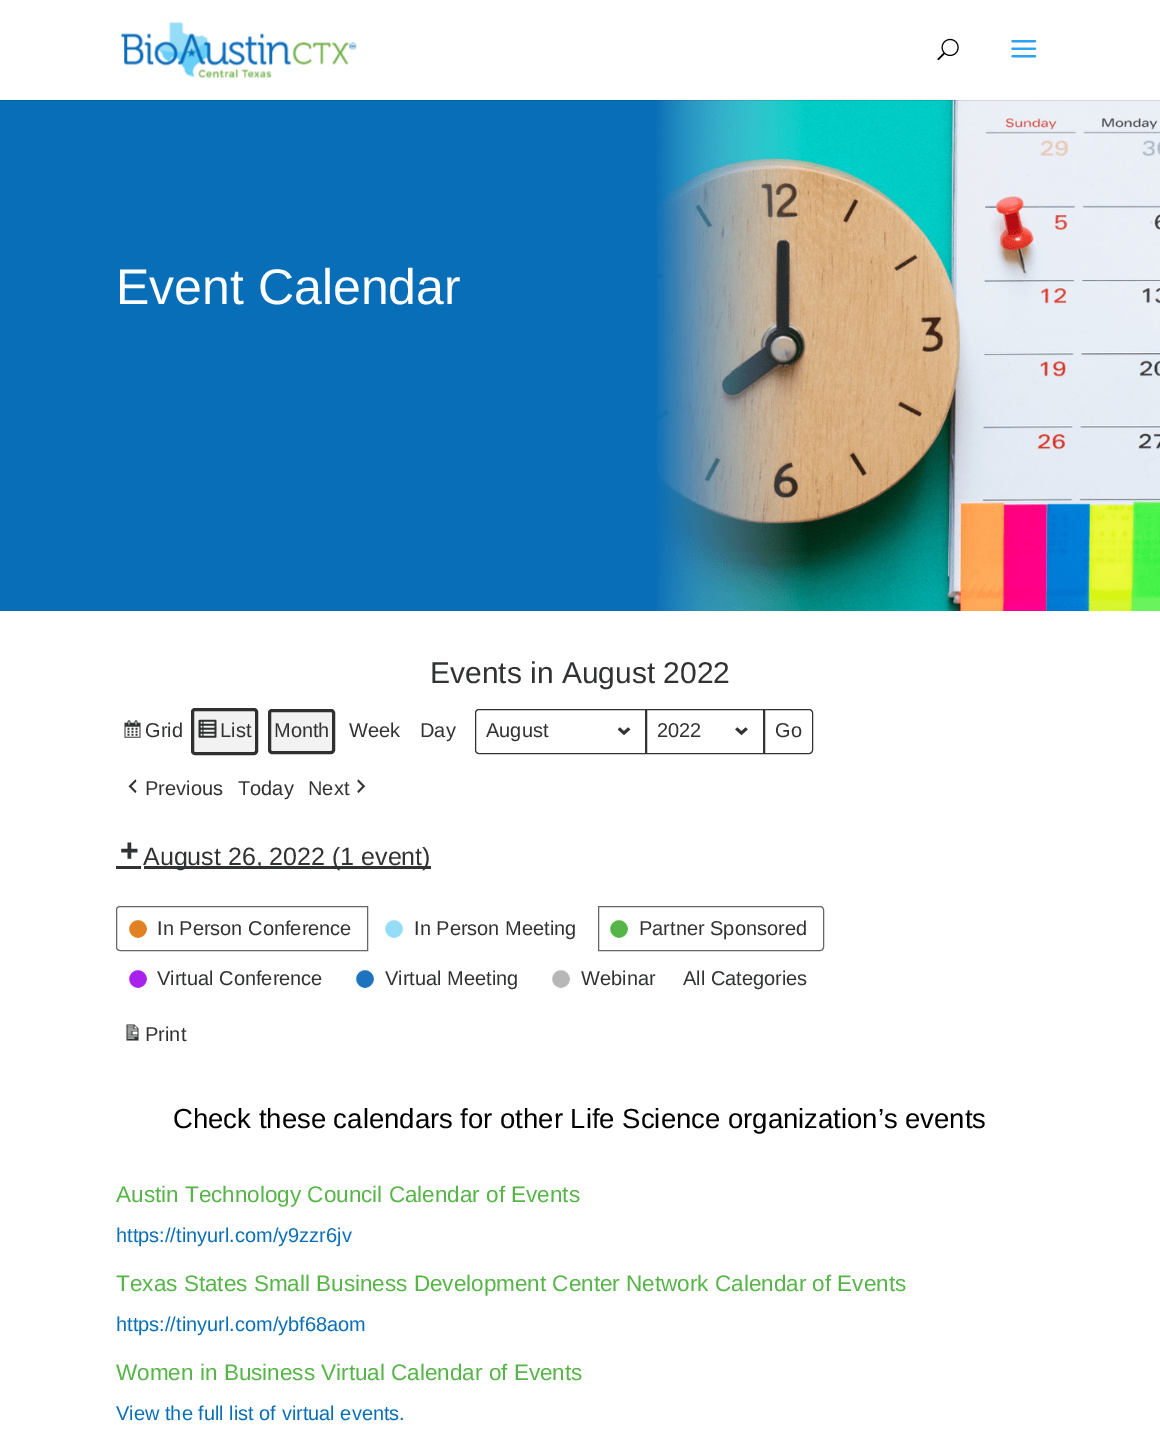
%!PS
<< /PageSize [1160 1456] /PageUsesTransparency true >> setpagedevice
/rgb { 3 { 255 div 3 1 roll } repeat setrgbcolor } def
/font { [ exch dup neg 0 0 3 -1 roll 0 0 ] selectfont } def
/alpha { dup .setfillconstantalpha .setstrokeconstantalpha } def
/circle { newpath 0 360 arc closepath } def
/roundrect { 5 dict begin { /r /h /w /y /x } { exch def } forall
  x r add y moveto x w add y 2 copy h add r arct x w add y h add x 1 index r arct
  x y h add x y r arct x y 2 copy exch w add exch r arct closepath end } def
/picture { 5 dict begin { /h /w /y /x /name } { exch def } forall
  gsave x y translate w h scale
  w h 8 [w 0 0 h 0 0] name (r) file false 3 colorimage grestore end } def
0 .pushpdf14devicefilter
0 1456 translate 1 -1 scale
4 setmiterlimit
255 255 255 rgb
0 0 1160 1456 rectfill
(img/4.rgb) 0 100 1160 511 picture
0.1 alpha
0 0 0 rgb
0 100 1160 1 rectfill
1 alpha
(img/1.rgb) 121 22 236 56 picture
(img/2.rgb) 937 38 22 23 picture
(img/3.rgb) 1011 40 26 18 picture
(img/5.rgb) 124 720 17 18 picture
242 242 242 rgb
191 708 67 47 4 roundrect fill
(img/6.rgb) 198 719 19 19 picture
47 48 48 rgb
3 setlinewidth
192.5 709.5 64 44 2.5 roundrect stroke
242 242 242 rgb
268 709 67 45 4 roundrect fill
47 48 48 rgb
269.5 710.5 64 42 2.5 roundrect stroke
(img/7.rgb) 618 727 13 9 picture
49 50 51 rgb
1 setlinewidth
479 709.5 moveto 645.5 709.5 lineto 645.5 753.5 lineto 479 753.5 lineto 477 753.5 475.5 752 475.5 750 curveto 475.5 713 lineto 475.5 711 477 709.5 479 709.5 curveto closepath stroke
(img/8.rgb) 735 727 13 9 picture
646.5 709.5 117 44 rectstroke
764.5 709.5 moveto 809 709.5 lineto 811 709.5 812.5 711 812.5 713 curveto 812.5 750 lineto 812.5 752 811 753.5 809 753.5 curveto 764.5 753.5 lineto closepath stroke
(img/9.rgb) 128 779 9 15 picture
(img/10.rgb) 357 779 9 15 picture
(img/11.rgb) 121 842 17 17 picture
144 866 287 3 rectfill
116 866 25 3 rectfill
102 102 102 rgb
120 906.5 moveto 367.5 906.5 lineto 367.5 950.5 lineto 120 950.5 lineto 118 950.5 116.5 949 116.5 947 curveto 116.5 910 lineto 116.5 908 118 906.5 120 906.5 curveto closepath stroke
226 128 36 rgb
138 929 9.5 circle gsave fill grestore
255 255 255 rgb
stroke
149 221 246 rgb
394 929 9.5 circle gsave fill grestore
255 255 255 rgb
stroke
102 102 102 rgb
598.5 906.5 moveto 820 906.5 lineto 822 906.5 823.5 908 823.5 910 curveto 823.5 947 lineto 823.5 949 822 950.5 820 950.5 curveto 598.5 950.5 lineto closepath stroke
86 181 71 rgb
619 929 9.5 circle gsave fill grestore
255 255 255 rgb
stroke
169 33 237 rgb
138 979 9.5 circle gsave fill grestore
255 255 255 rgb
stroke
30 115 190 rgb
365 979 9.5 circle gsave fill grestore
255 255 255 rgb
stroke
183 183 183 rgb
561 979 9.5 circle gsave fill grestore
255 255 255 rgb
stroke
(img/12.rgb) 126 1024 13 17 picture
/LiberationSans-Regular 50 font
116 304 moveto (Event Calendar) show
/LiberationSans-Regular 30 font
49 50 51 rgb
430 683 moveto (Events in August 2022) show
/LiberationSans-Regular 20 font
[
  [(Grid) 145 737]
  [(List) 220 737]
  [(Month) 274 737]
  [(Week) 349 737]
  [(Day) 420 737]
  [(August) 486 737]
  [(2022) 657 737]
  [(Go) 775 737]
  [(Previous) 145 795]
  [(Today) 238 795]
  [(Next) 308 795]
] { aload pop moveto show } forall
/LiberationSans-Regular 25 font
143 865 moveto (August 26, 2022 \(1 event\)) show
/LiberationSans-Regular 20 font
[
  [(In Person Conference) 157 935]
  [(In Person Meeting) 414 935]
  [(Partner Sponsored) 639 935]
  [(Virtual Conference) 157 985]
  [(Virtual Meeting) 385 985]
  [(Webinar) 581 985]
  [(All Categories) 683 985]
  [(Print) 145 1041]
] { aload pop moveto show } forall
/LiberationSans-Regular 27.5 font
0 0 0 rgb
173 1128 moveto (Check these calendars for other Life Science organization’s events) show
/LiberationSans-Regular 22.5 font
86 181 71 rgb
116 1202 moveto (Austin Technology Council Calendar of Events) show
/LiberationSans-Regular 20 font
8 110 183 rgb
116 1242 moveto (https://tinyurl.com/y9zzr6jv) show
/LiberationSans-Regular 22.5 font
86 181 71 rgb
116 1291 moveto (Texas States Small Business Development Center Network Calendar of Events) show
/LiberationSans-Regular 20 font
8 110 183 rgb
116 1331 moveto (https://tinyurl.com/ybf68aom) show
/LiberationSans-Regular 22.5 font
86 181 71 rgb
116 1380 moveto (Women in Business Virtual Calendar of Events) show
/LiberationSans-Regular 20 font
8 110 183 rgb
116 1420 moveto (View the full list of virtual events.) show
.poppdf14devicefilter showpage
